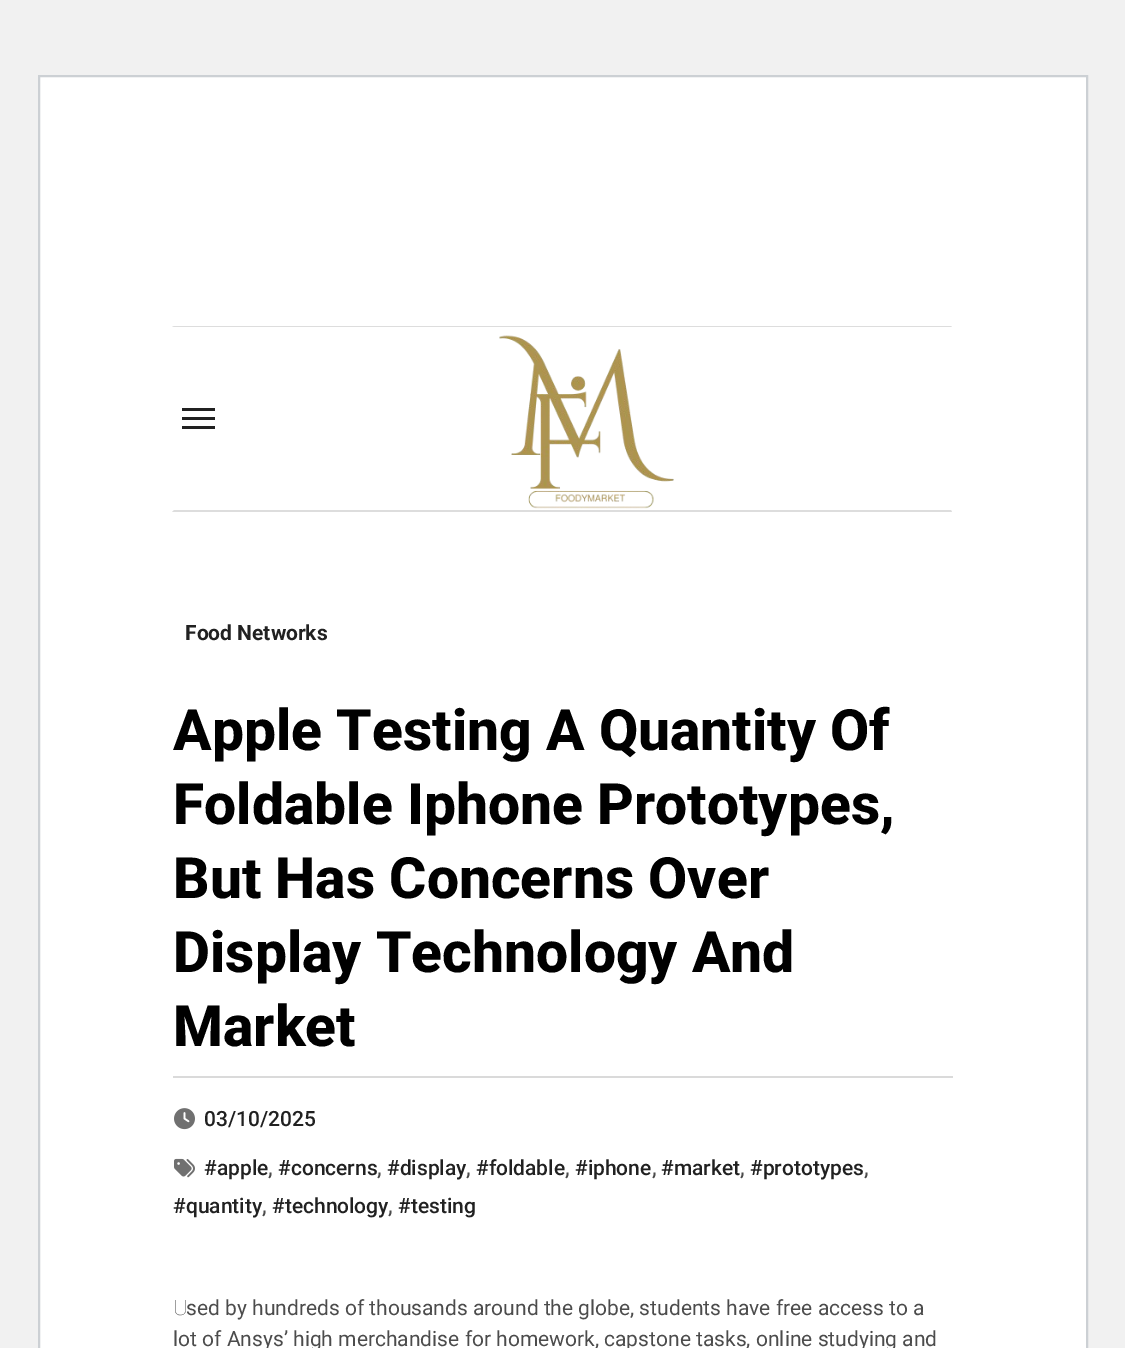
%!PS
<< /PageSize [1125 1348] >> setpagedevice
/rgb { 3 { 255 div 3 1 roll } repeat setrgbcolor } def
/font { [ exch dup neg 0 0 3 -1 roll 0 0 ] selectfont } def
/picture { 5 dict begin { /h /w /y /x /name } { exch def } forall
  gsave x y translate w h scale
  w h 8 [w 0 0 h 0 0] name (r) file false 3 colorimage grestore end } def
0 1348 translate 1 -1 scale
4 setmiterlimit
241 241 241 rgb
0 0 1125 1348 rectfill
255 255 255 rgb
39 76 moveto 1087 76 lineto 1087 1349 lineto 39 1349 lineto closepath gsave fill grestore
204 208 212 rgb
2 setlinewidth
stroke
221 221 221 rgb
172 326 moveto 952 326 lineto 951 327 lineto 174 327 lineto closepath fill
952 512 moveto 172 512 lineto 174 510 lineto 951 510 lineto closepath fill
[
  [182 408 33 3 33 33 33]
  [182 417 33 3 33 33 33]
  [182 426 33 3 33 33 33]
] { aload pop rgb rectfill } forall
(img/1.rgb) 499 335 175 174 picture
218 218 218 rgb
173 1076 780 2 rectfill
(img/2.rgb) 174 1108 21 22 picture
(img/3.rgb) 174 1158 21 20 picture
/Roboto-Bold 21 font
33 33 33 rgb
185 640 moveto (Food Networks) show
/Roboto-ExtraBold 57 font
0 0 0 rgb
[
  [(Apple Testing A Quantity Of) 173 750]
  [(Foldable Iphone Prototypes,) 173 824]
  [(But Has Concerns Over) 173 898]
  [(Display Technology And) 173 972]
  [(Market) 173 1046]
] { aload pop moveto show } forall
/Roboto-Medium 21 font
33 33 33 rgb
204 1126 moveto (03/10/2025) show
204 1175 moveto (#apple) show
76 76 76 rgb
268 1175 moveto (,) show
33 33 33 rgb
278 1175 moveto (#concerns) show
76 76 76 rgb
377 1175 moveto (,) show
33 33 33 rgb
387 1175 moveto (#display) show
76 76 76 rgb
466 1175 moveto (,) show
33 33 33 rgb
476 1175 moveto (#foldable) show
76 76 76 rgb
565 1175 moveto (,) show
33 33 33 rgb
575 1175 moveto (#iphone) show
76 76 76 rgb
652 1175 moveto (,) show
33 33 33 rgb
661 1175 moveto (#market) show
76 76 76 rgb
740 1175 moveto (,) show
33 33 33 rgb
750 1175 moveto (#prototypes) show
76 76 76 rgb
864 1175 moveto (,) show
33 33 33 rgb
173 1213 moveto (#quantity) show
76 76 76 rgb
262 1213 moveto (,) show
33 33 33 rgb
272 1213 moveto (#technology) show
76 76 76 rgb
388 1213 moveto (,) show
33 33 33 rgb
398 1213 moveto (#testing) show
/NotoSans-Thin 21 font
76 76 76 rgb
173 1315 moveto (U) show
/Roboto-Regular 21 font
186 1315 moveto (sed by hundreds of thousands around the globe, students have free access to a) show
173 1346 moveto (lot of Ansys’ high merchandise for homework, capstone tasks, online studying and) show
showpage
